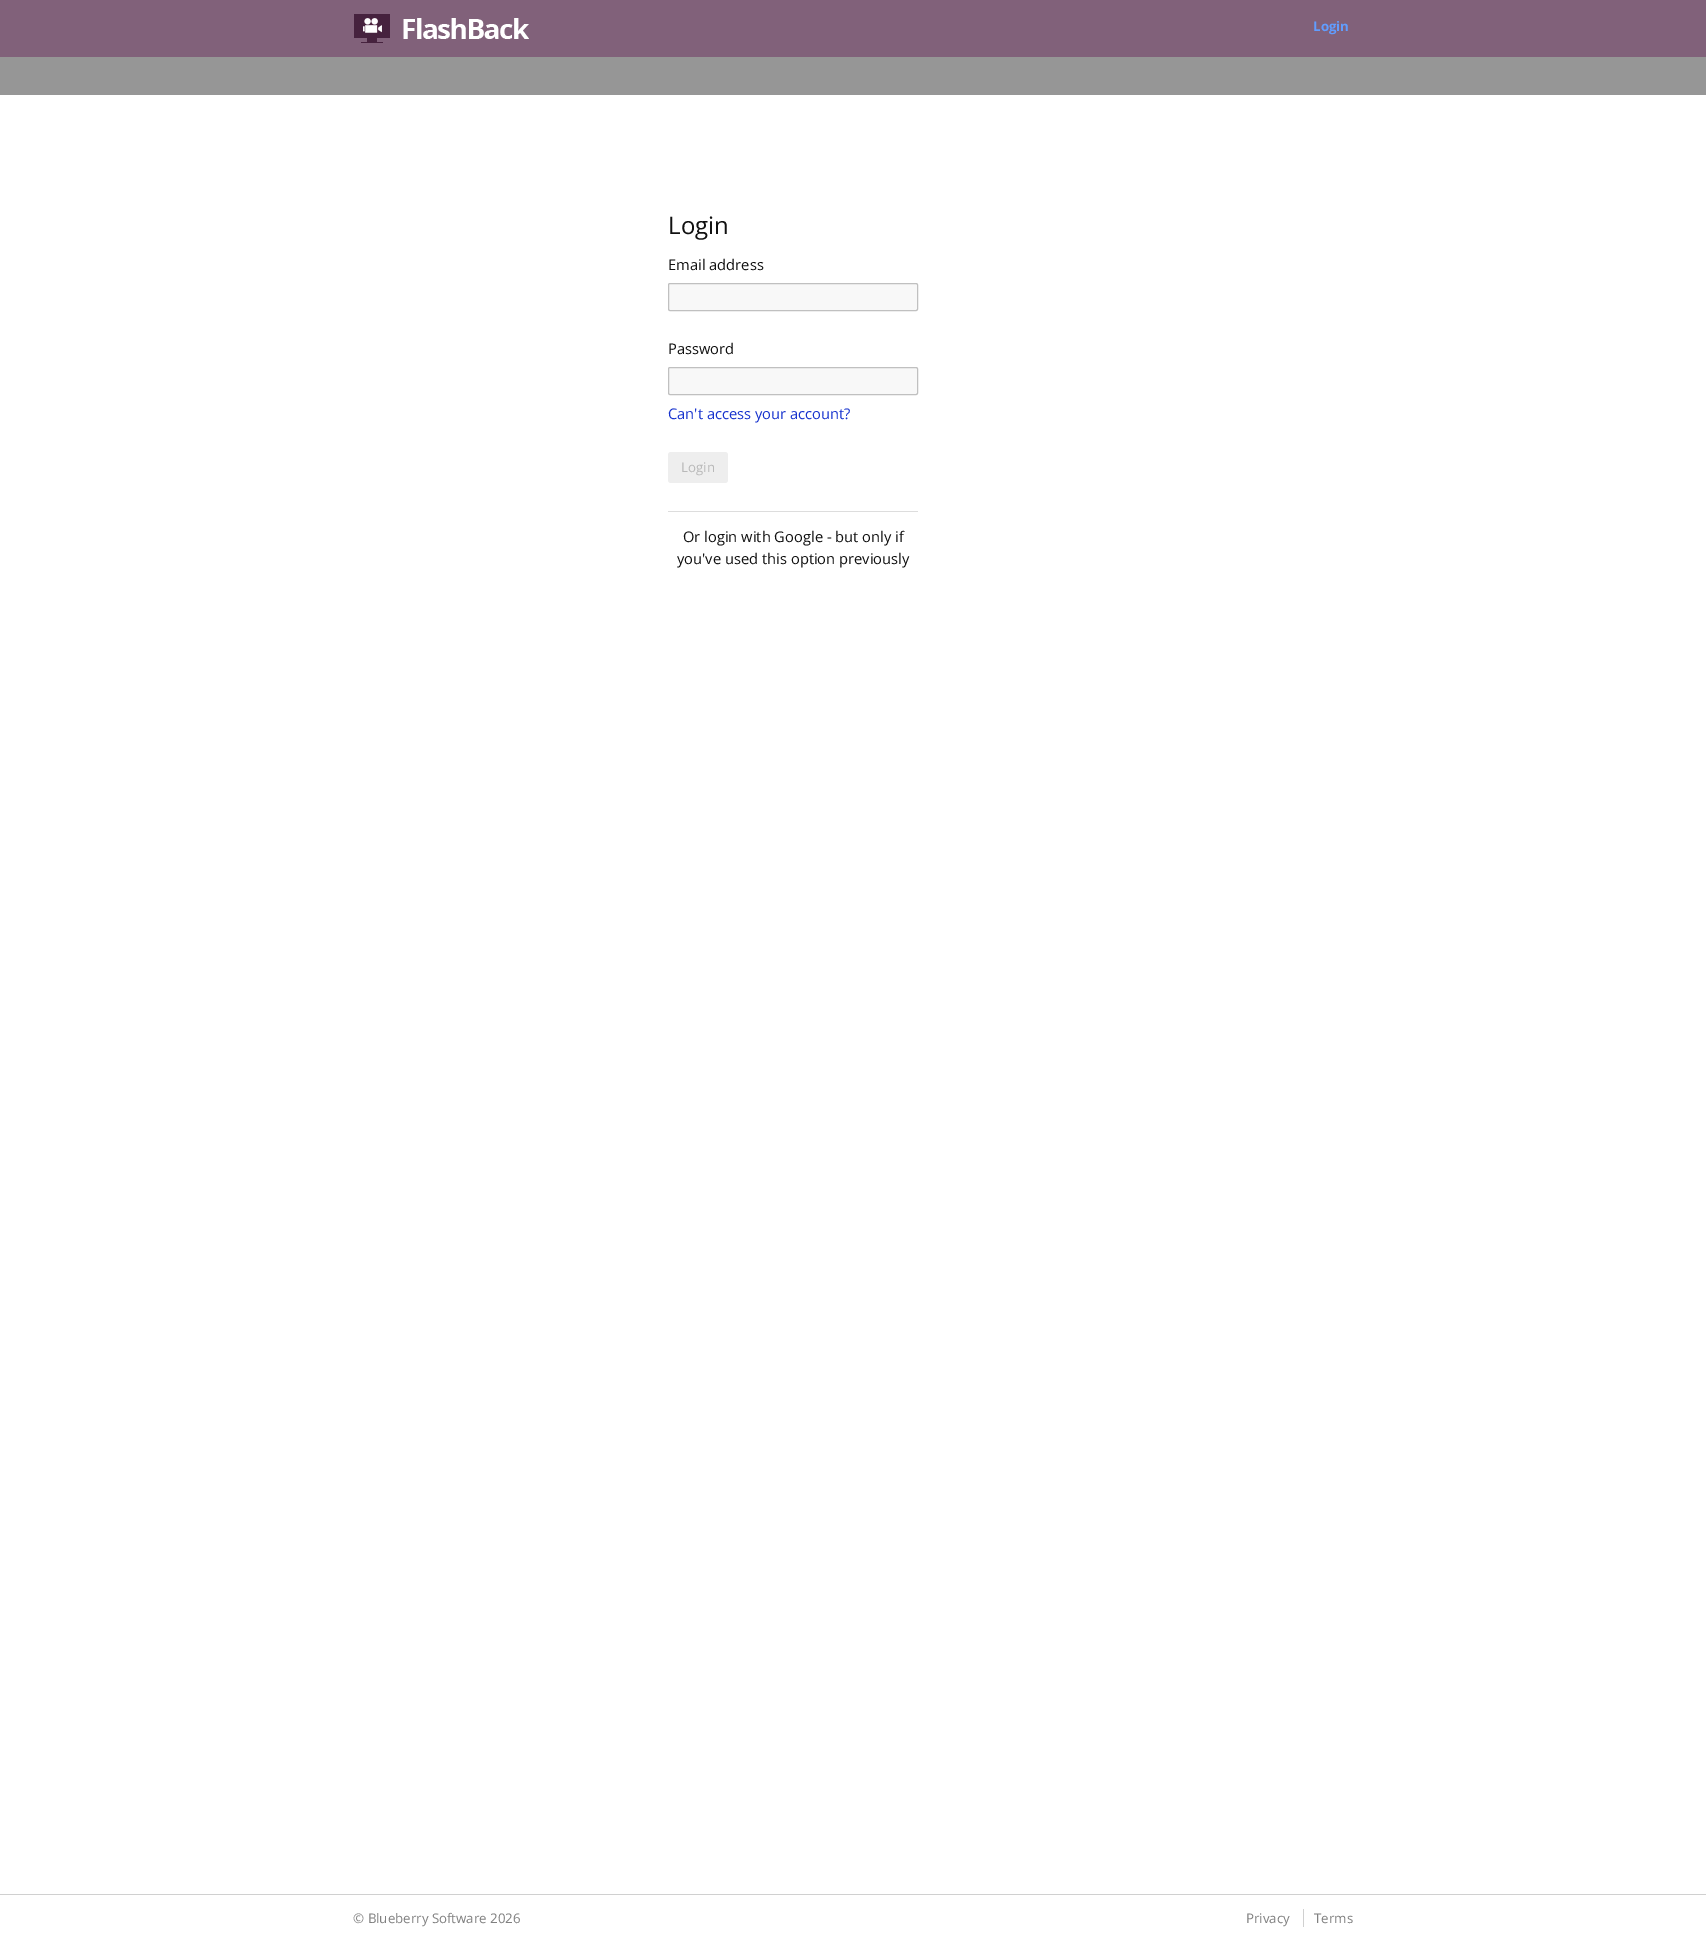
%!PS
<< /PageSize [1706 1941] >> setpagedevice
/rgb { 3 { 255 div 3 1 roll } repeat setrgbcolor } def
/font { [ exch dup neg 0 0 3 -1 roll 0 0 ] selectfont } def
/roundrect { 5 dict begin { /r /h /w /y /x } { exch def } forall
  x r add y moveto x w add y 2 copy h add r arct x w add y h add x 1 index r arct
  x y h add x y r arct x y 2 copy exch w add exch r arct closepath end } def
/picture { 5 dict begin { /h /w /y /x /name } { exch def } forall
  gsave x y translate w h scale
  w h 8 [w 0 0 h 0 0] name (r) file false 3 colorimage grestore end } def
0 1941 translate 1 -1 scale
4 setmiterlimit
255 255 255 rgb
0 0 1706 1941 rectfill
129 97 122 rgb
0 0 1706 57 rectfill
(img/1.rgb) 354 14 175 29 picture
150 150 150 rgb
0 57 1706 38 rectfill
248 248 248 rgb
668.5 283.5 249 27 1.5 roundrect gsave fill grestore
192 192 192 rgb
stroke
248 248 248 rgb
668.5 367.5 249 27 1.5 roundrect gsave fill grestore
192 192 192 rgb
stroke
238 238 238 rgb
668 452 60 31 3 roundrect fill
[
  [668 511 250 1 221 221 221]
  [0 1894 1706 1 208 208 208]
  [1303 1909 1 18 208 208 208]
] { aload pop rgb rectfill } forall
/OpenSans-Bold 13.3 font
97 157 255 rgb
1313 31 moveto (Login) show
/OpenSans-Regular 24 font
17 17 17 rgb
668 234 moveto (Login) show
/OpenSans-Regular 14.7 font
668 270 moveto (Email address) show
668 354 moveto (Password) show
23 51 206 rgb
668 419 moveto (Can't access your account?) show
/OpenSans-Regular 13.3 font
185 185 185 rgb
681 472 moveto (Login) show
/OpenSans-Regular 14.7 font
17 17 17 rgb
683 542 moveto (Or login with Google - but only if) show
677 564 moveto (you've used this option previously) show
/OpenSans-Regular 13.3 font
128 128 128 rgb
[
  [(© Blueberry Software 2026) 353 1923]
  [(Privacy) 1246 1923]
  [(Terms) 1314 1923]
] { aload pop moveto show } forall
showpage
